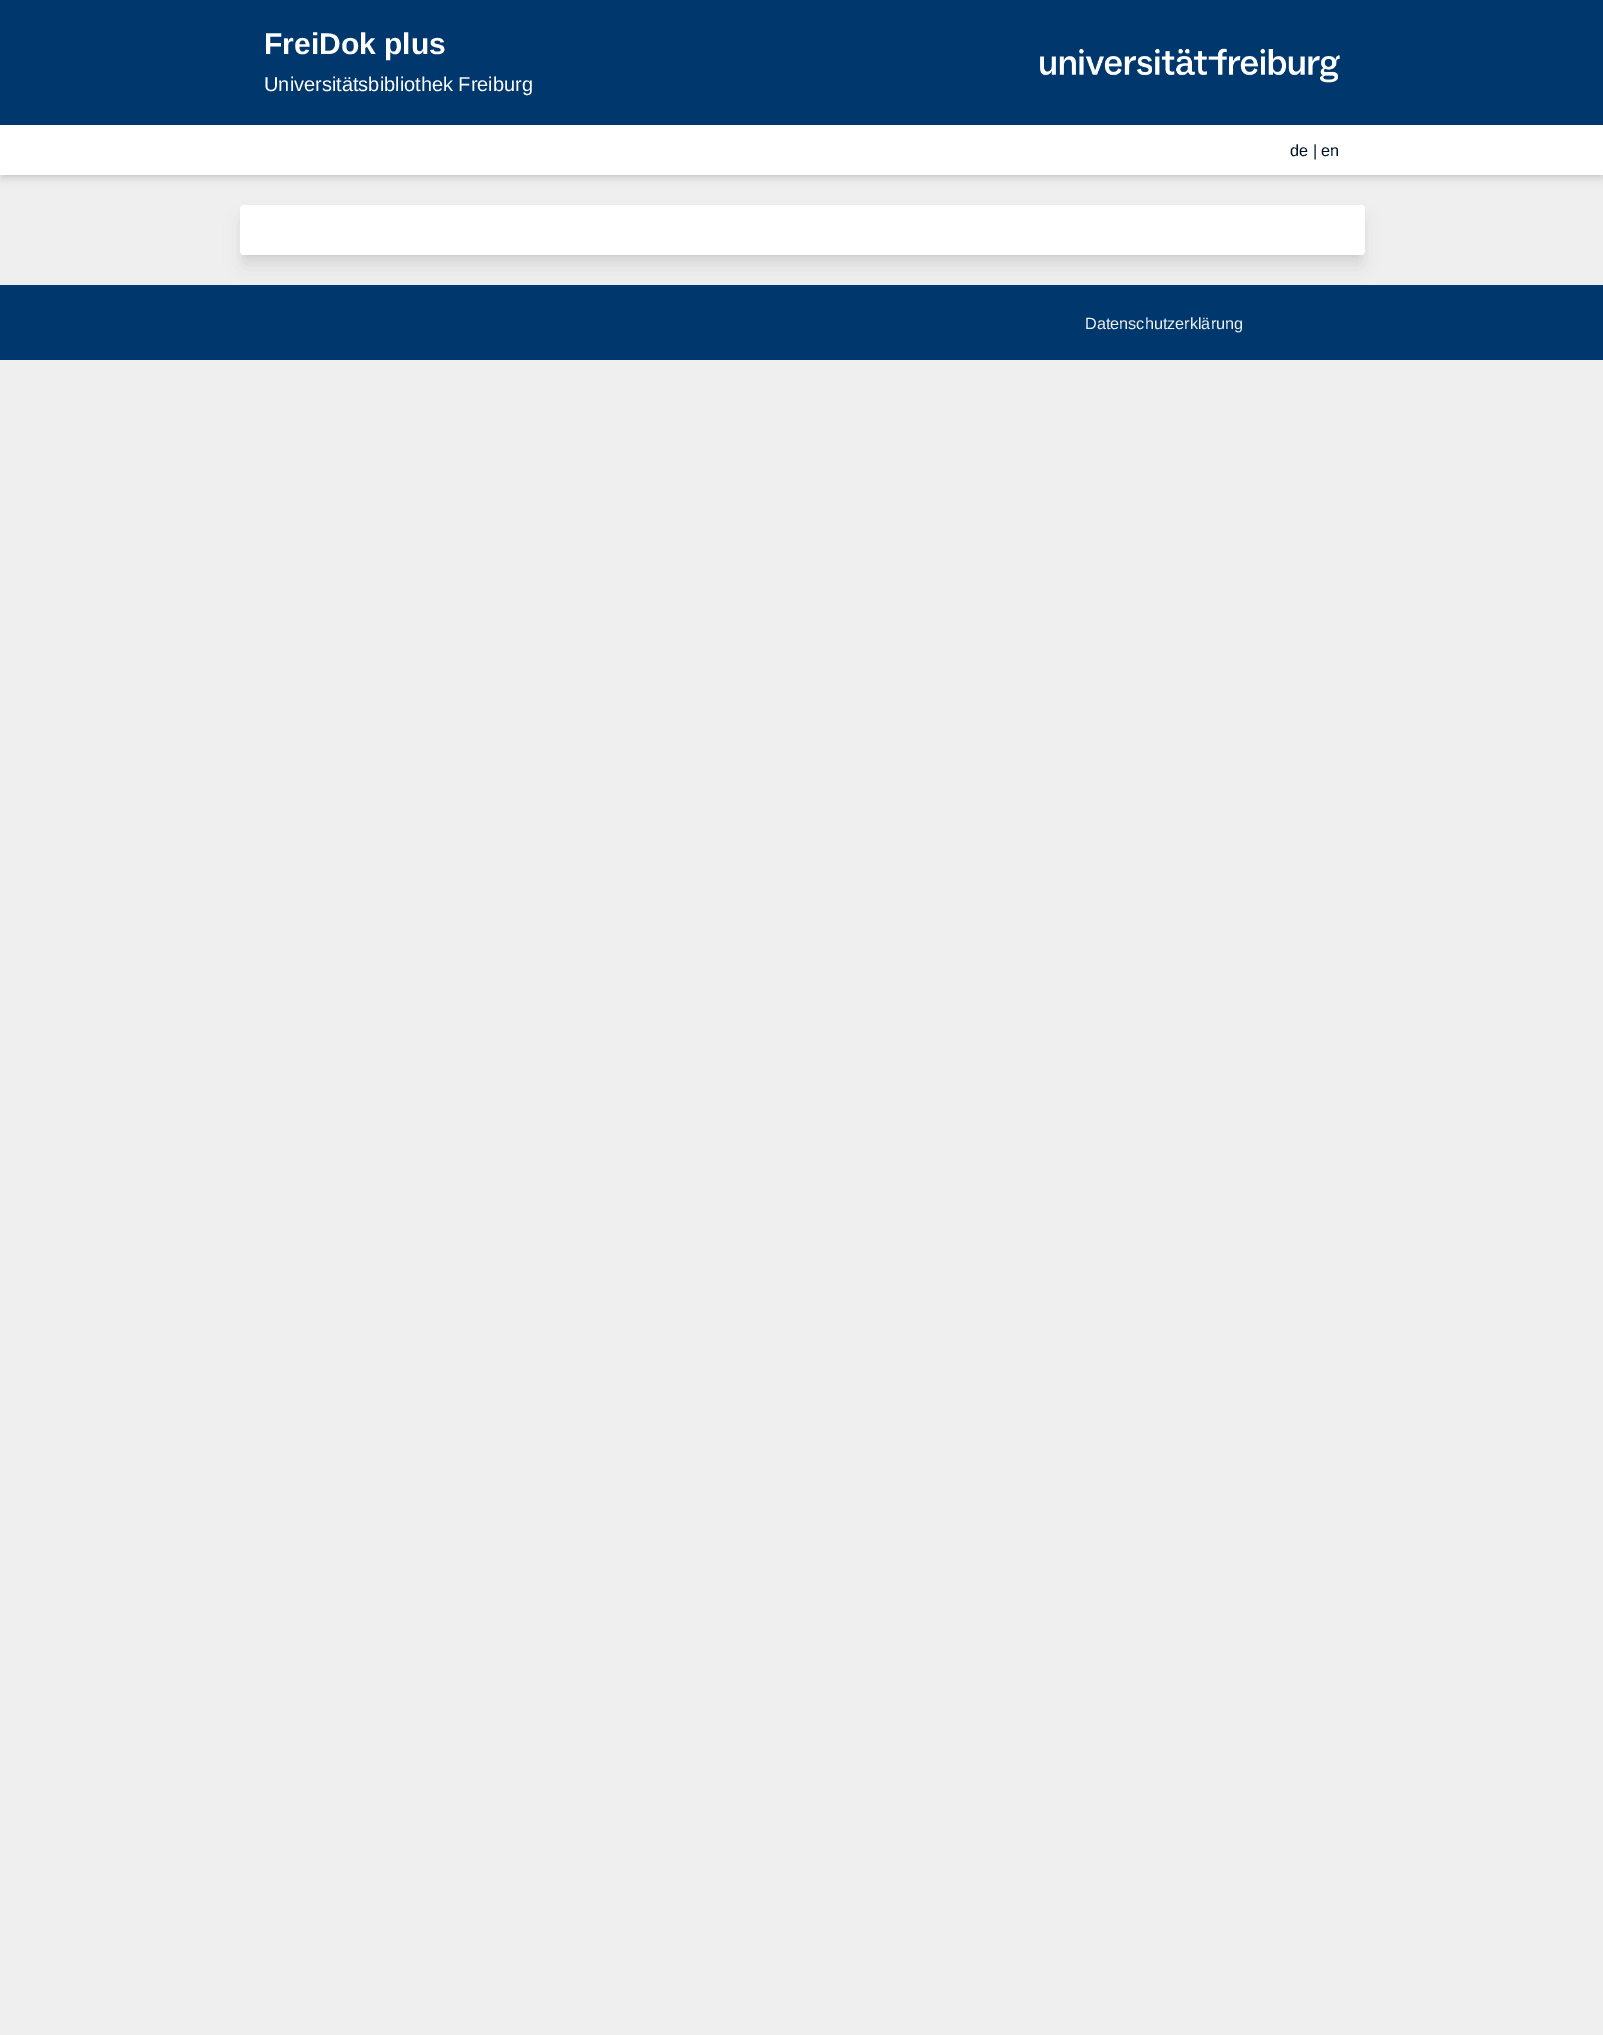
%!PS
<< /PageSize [1603 2035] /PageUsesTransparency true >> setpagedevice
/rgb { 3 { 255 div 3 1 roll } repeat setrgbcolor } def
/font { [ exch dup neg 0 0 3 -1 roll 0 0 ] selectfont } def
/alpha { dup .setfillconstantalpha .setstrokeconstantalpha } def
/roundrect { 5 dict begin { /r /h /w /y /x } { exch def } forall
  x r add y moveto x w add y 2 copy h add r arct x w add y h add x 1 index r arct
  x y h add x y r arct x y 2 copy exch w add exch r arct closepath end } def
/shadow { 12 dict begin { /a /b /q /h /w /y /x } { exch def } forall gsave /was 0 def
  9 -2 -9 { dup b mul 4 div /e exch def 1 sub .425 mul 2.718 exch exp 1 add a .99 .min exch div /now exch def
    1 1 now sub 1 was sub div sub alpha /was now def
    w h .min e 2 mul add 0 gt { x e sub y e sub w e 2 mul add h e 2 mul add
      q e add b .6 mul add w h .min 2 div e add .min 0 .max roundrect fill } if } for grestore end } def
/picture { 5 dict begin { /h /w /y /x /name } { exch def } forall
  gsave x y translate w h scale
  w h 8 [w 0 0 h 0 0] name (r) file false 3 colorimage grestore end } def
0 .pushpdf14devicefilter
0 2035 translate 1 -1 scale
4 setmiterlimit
239 239 239 rgb
0 0 1603 2035 rectfill
0 55 109 rgb
0 0 1603 125 rectfill
(img/1.rgb) 1040 48 300 35 picture
0 0 0 rgb
3 130 1598 45 0 2.5 0.1 shadow
1 131 1602 48 0 4 0.1 shadow
255 255 255 rgb
0 125 1603 50 rectfill
0 0 0 rgb
245 215 1115 40 0 4 0.1 shadow
0 55 109 rgb
0 285 1603 75 rectfill
0 0 0 rgb
244 221 1117 43 0 9.5 0.1 shadow
255 255 255 rgb
240 205 1125 50 4 roundrect fill
/LiberationSans-Bold 30 font
264 54 moveto (FreiDok plus) show
/LiberationSans-Regular 20 font
264 91 moveto (Universitätsbibliothek Freiburg) show
/LiberationSans-Regular 16.25 font
0 18 36 rgb
1290 156 moveto (de | en) show
239 239 239 rgb
1085 329 moveto (Datenschutzerklärung) show
.poppdf14devicefilter showpage
